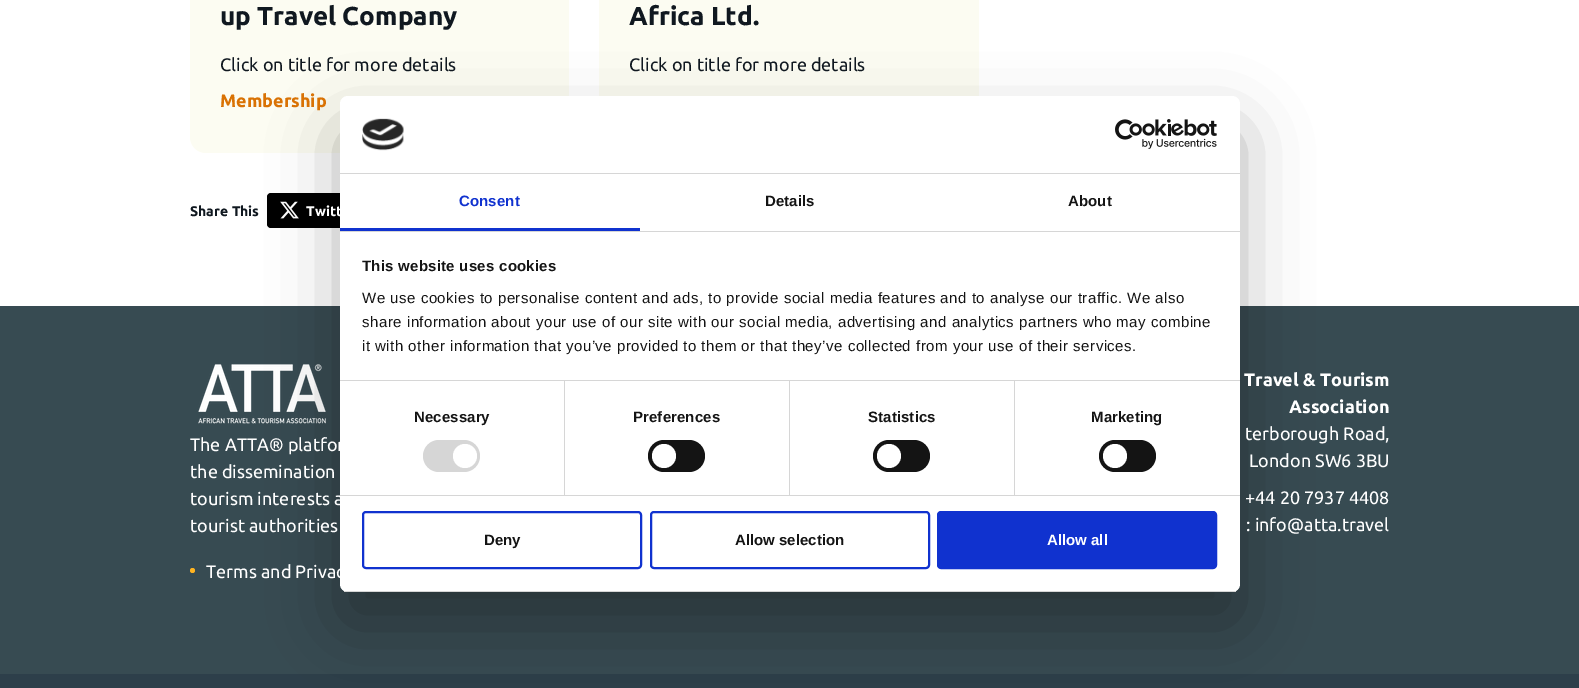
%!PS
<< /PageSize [1579 688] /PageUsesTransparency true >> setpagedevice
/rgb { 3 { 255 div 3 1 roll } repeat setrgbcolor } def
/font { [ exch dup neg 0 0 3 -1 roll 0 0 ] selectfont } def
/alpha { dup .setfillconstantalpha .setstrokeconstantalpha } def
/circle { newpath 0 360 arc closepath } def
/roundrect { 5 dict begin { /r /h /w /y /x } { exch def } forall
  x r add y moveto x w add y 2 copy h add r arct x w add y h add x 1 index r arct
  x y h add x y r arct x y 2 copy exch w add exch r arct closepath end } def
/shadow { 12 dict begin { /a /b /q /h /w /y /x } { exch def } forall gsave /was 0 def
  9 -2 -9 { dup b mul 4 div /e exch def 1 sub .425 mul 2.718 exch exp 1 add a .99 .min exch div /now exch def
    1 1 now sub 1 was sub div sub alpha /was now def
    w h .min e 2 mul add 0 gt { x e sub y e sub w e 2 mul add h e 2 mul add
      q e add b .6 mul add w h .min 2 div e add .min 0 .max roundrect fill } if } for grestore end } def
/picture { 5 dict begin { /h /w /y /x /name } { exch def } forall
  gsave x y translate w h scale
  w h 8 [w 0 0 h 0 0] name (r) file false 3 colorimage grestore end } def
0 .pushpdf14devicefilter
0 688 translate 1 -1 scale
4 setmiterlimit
255 255 255 rgb
0 0 1579 688 rectfill
252 252 242 rgb
190 -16 379 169 16 roundrect fill
599 0 380 96 rectfill
0 0 0 rgb
267 193 99 35 4 roundrect fill
(img/1.rgb) 280 201 19 18 picture
55 75 82 rgb
0 306 1579 368 rectfill
(img/2.rgb) 198 364 128 60 picture
255 180 33 rgb
192.5 570.5 2.5 circle fill
45 63 74 rgb
0 674 1579 14 rectfill
0 0 0 rgb
340 128 900 496 8 34 0.3 shadow
255 255 255 rgb
340 96 900 496 8 roundrect fill
214 214 214 rgb
340 173 900 1 rectfill
(img/3.rgb) 362 118 42 33 picture
(img/4.rgb) 1115 119 102 30 picture
[
  [340 231 900 1 214 214 214]
  [340 228 300 3 16 50 207]
  [340 380 900 1 214 214 214]
  [564 381 1 114 214 214 214]
] { aload pop rgb rectfill } forall
423 440 57 32 16 roundrect fill
255 255 255 rgb
465 456 12 circle fill
214 214 214 rgb
789 381 1 114 rectfill
20 20 20 rgb
648 440 57 32 16 roundrect fill
255 255 255 rgb
664 456 12 circle fill
214 214 214 rgb
1014 381 1 114 rectfill
20 20 20 rgb
873 440 57 32 16 roundrect fill
255 255 255 rgb
889 456 12 circle fill
20 20 20 rgb
1099 440 57 32 16 roundrect fill
255 255 255 rgb
1115 456 12 circle fill
gsave
340 96 900 496 8 roundrect clip newpath
214 214 214 rgb
340 591 900 1 rectfill
grestore
16 50 207 rgb
2 setlinewidth
363 512 278 56 3 roundrect stroke
651 512 278 56 3 roundrect stroke
938 512 278 56 3 roundrect gsave fill grestore
stroke
/Ubuntu-Bold 26 font
16 24 32 rgb
220 25 moveto (up Travel Company) show
/Ubuntu-Regular 18 font
220 71 moveto (Click on title for more details) show
/Ubuntu-Bold 18 font
217 114 4 rgb
220 107 moveto (Membership) show
/Ubuntu-Bold 26 font
16 24 32 rgb
629 25 moveto (Africa Ltd.) show
/Ubuntu-Regular 18 font
629 71 moveto (Click on title for more details) show
/Ubuntu-Bold 14 font
190 216 moveto (Share This) show
255 255 255 rgb
306 216 moveto (Twitt) show
/Ubuntu-Regular 18 font
[
  [(The ATTA® platfor) 190 451]
  [(the dissemination) 190 478]
  [(tourism interests a) 190 505]
  [(tourist authorities) 190 532]
  [(Terms and Privac) 206 578]
] { aload pop moveto show } forall
/Ubuntu-Bold 18 font
1244 386 moveto (Travel & Tourism) show
1289 413 moveto (Association) show
/Ubuntu-Regular 18 font
[
  [(terborough Road,) 1245 440]
  [(London SW6 3BU) 1249 467]
  [(+44 20 7937 4408) 1245 504]
  [(: info@atta.travel) 1246 531]
] { aload pop moveto show } forall
/LiberationSans-Bold 15 font
16 50 207 rgb
459 206 moveto 0.1 0 (Consent) ashow
20 20 20 rgb
765 206 moveto 0.1 0 (Details) ashow
1068 206 moveto 0.1 0 (About) ashow
362 271 moveto 0.25 0 (This website uses cookies) ashow
/LiberationSans-Regular 15 font
362 303 moveto 0.5 0 (We use cookies to personalise content and ads, to provide social media features and to analyse our traffic. We also) ashow
362 327 moveto 0.5 0 (share information about your use of our site with our social media, advertising and analytics partners who may combine) ashow
362 351 moveto 0.5 0 (it with other information that you’ve provided to them or that they’ve collected from your use of their services.) ashow
214 214 214 rgb
340 495 900 1 rectfill
/LiberationSans-Bold 15 font
20 20 20 rgb
414 422 moveto 0.1 0 (Necessary) ashow
633 422 moveto 0.1 0 (Preferences) ashow
868 422 moveto 0.1 0 (Statistics) ashow
1091 422 moveto 0.1 0 (Marketing) ashow
484 545 moveto (Deny) show
735 545 moveto (Allow selection) show
255 255 255 rgb
1047 545 moveto (Allow all) show
.poppdf14devicefilter showpage
